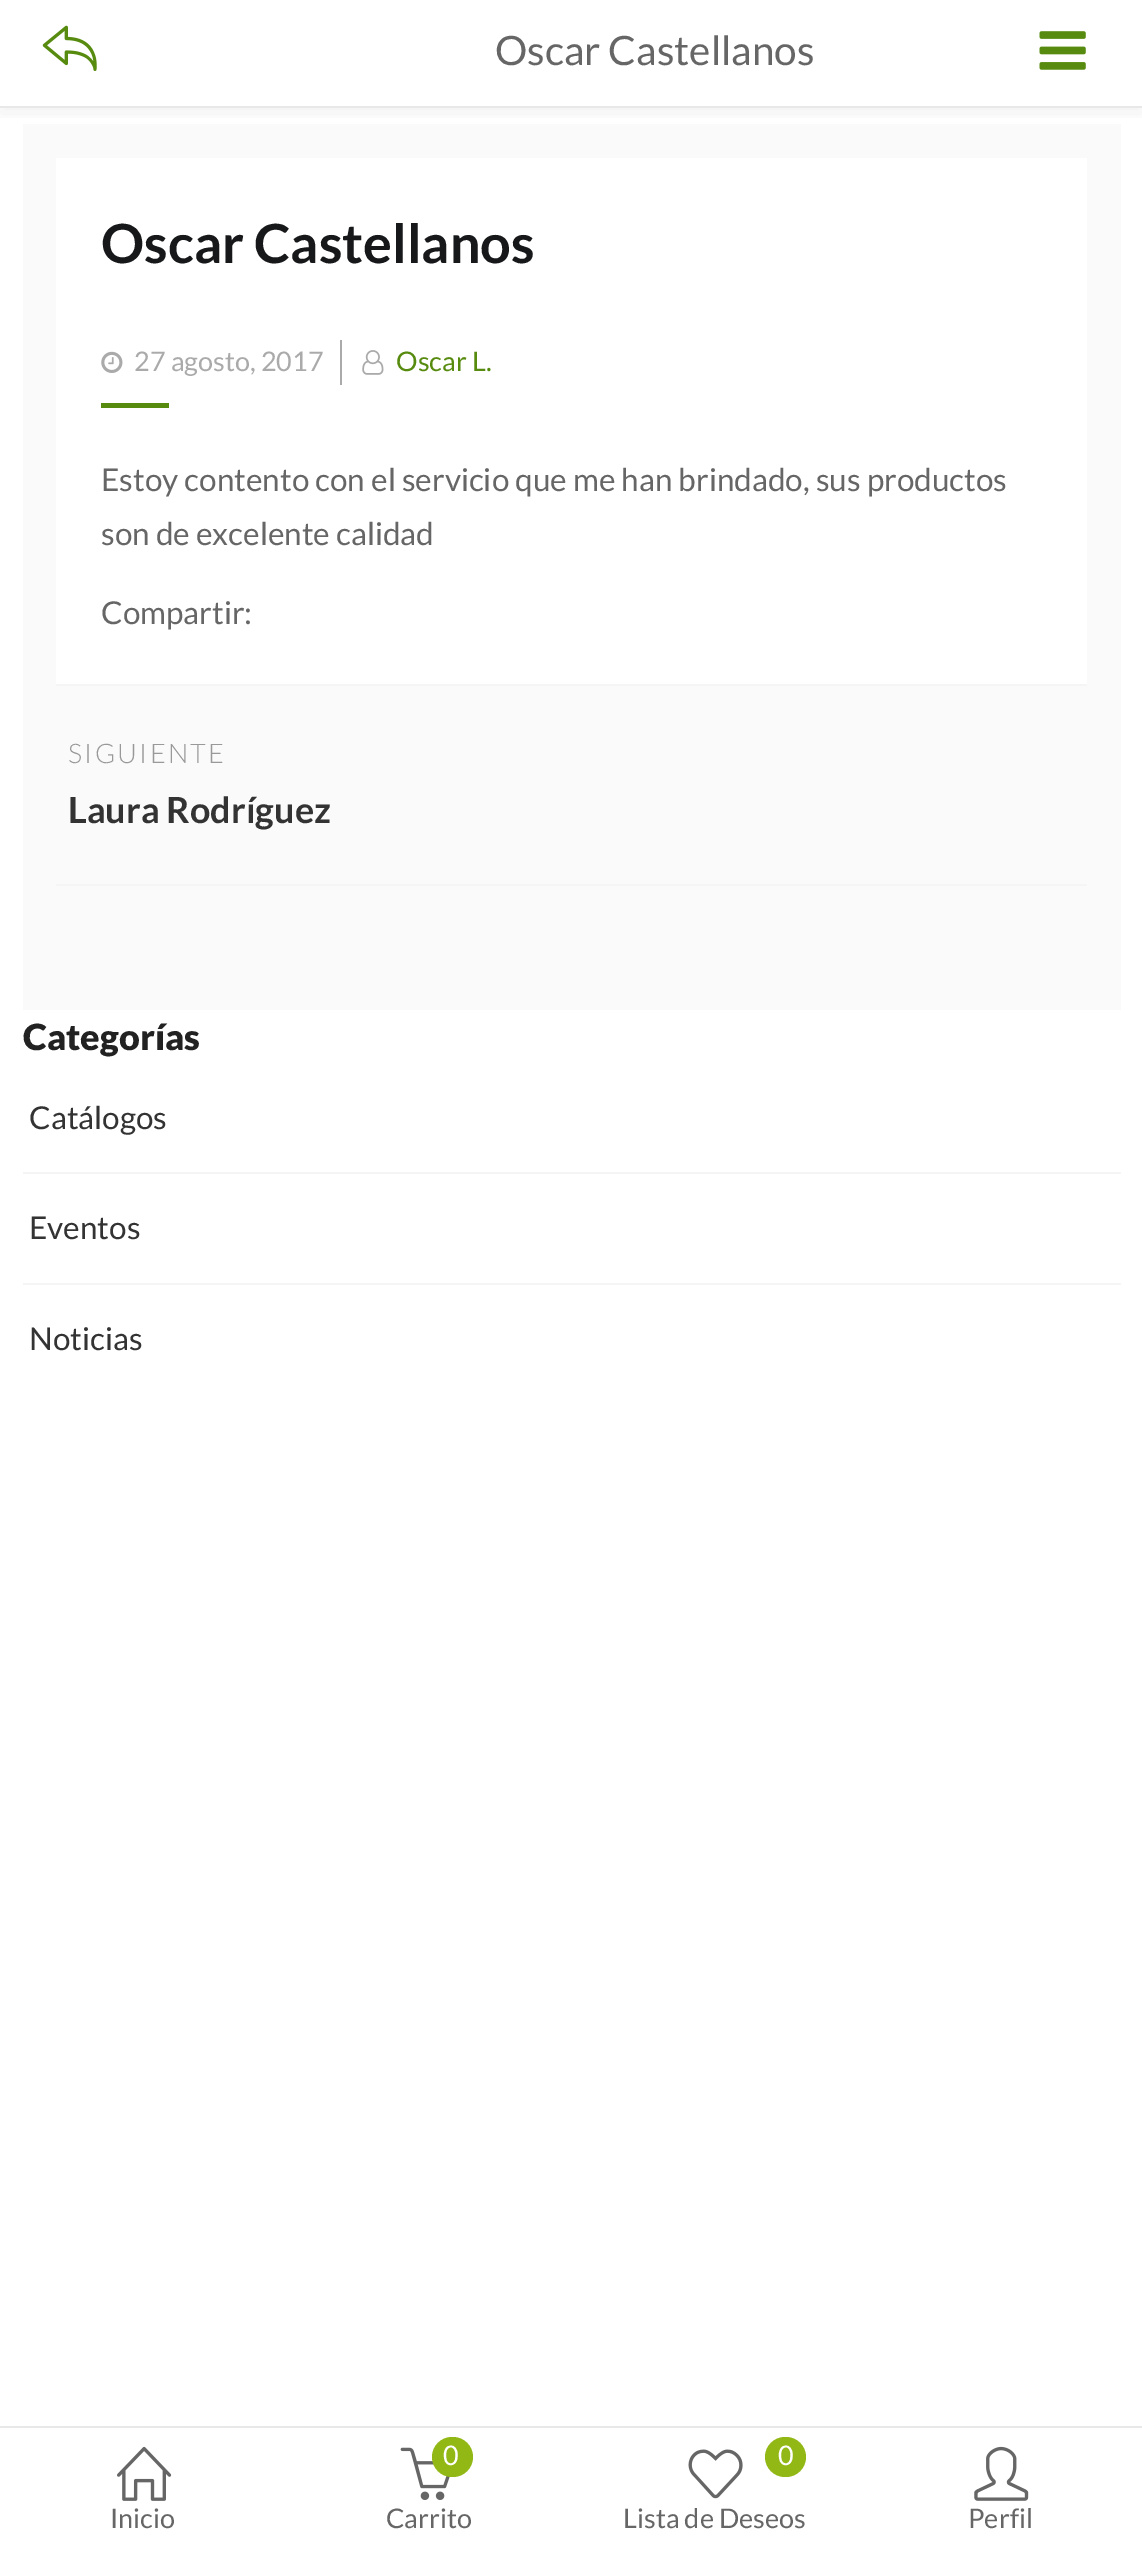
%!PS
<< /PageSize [1142 2551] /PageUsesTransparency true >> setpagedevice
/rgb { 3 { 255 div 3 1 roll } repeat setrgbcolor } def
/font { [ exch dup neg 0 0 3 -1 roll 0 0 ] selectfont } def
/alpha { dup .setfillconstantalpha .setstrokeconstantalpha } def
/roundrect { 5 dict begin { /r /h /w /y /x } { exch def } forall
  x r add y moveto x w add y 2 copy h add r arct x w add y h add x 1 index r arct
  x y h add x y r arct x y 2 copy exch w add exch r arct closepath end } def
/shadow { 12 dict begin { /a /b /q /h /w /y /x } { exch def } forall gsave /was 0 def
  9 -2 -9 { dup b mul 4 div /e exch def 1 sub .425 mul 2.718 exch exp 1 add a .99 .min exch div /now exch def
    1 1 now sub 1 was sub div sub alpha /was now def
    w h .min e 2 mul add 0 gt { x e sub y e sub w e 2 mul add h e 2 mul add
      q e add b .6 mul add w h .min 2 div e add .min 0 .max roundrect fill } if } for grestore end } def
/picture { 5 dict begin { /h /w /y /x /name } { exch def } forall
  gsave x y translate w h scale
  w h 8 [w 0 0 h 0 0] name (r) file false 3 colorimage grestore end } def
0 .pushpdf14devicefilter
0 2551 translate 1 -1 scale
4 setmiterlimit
255 255 255 rgb
0 0 1142 2551 rectfill
250 250 250 rgb
23 124 1098 886 rectfill
gsave
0 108 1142 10 rectclip
0 0 0 rgb
0 5 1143 108 0 11 0.06 shadow
grestore
232 232 232 rgb
0 106 1142 2 rectfill
(img/1.rgb) 42 25 55 46 picture
(img/2.rgb) 1039 31 47 39 picture
255 255 255 rgb
56 158 1031 526 rectfill
170 170 170 rgb
340 340 2 45 rectfill
(img/3.rgb) 101 351 22 22 picture
(img/4.rgb) 362 350 22 25 picture
[
  [101 403 68 5 87 139 15]
  [56 684 1031 2 245 245 245]
  [56 884 1031 2 245 245 245]
  [23 1172 1098 2 245 245 245]
  [23 1283 1098 2 245 245 245]
  [0 2426 1142 2 232 232 232]
] { aload pop rgb rectfill } forall
(img/5.rgb) 117 2446 55 55 picture
(img/6.rgb) 400 2447 50 53 picture
146 184 22 rgb
432 2437 41 40 20 roundrect fill
(img/7.rgb) 688 2449 55 50 picture
765 2437 41 40 20 roundrect fill
(img/8.rgb) 974 2446 55 55 picture
/Lato-Regular 40.5 font
102 102 102 rgb
495 65 moveto (Oscar Castellanos) show
/Lato-Bold 54 font
23 24 26 rgb
101 263 moveto (Oscar Castellanos) show
/Lato-Regular 27 font
170 170 170 rgb
134 371 moveto (27 agosto, 2017) show
87 139 15 rgb
396 371 moveto (Oscar L.) show
/Lato-Regular 31.5 font
102 102 102 rgb
[
  [(Estoy contento con el servicio que me han brindado, sus productos) 101 491]
  [(son de excelente calidad) 101 545]
  [(Compartir:) 101 624]
] { aload pop moveto show } forall
/Lato-Light 27 font
153 153 153 rgb
68 763 moveto 2.25 0 (SIGUIENTE) ashow
/Lato-Bold 36 font
51 51 51 rgb
68 823 moveto (Laura Rodríguez) show
/Lato-Black 36 font
34 34 34 rgb
23 1050 moveto (Categorías) show
/Lato-Regular 31.5 font
51 51 51 rgb
[
  [(Catálogos) 29 1129]
  [(Eventos) 29 1239]
  [(Noticias) 29 1350]
] { aload pop moveto show } forall
/Lato-Regular 27 font
102 102 102 rgb
110 2528 moveto (Inicio) show
255 255 255 rgb
443 2465 moveto (0) show
102 102 102 rgb
386 2528 moveto (Carrito) show
255 255 255 rgb
778 2465 moveto (0) show
102 102 102 rgb
623 2528 moveto (Lista de Deseos) show
968 2528 moveto (Perfil) show
.poppdf14devicefilter showpage
